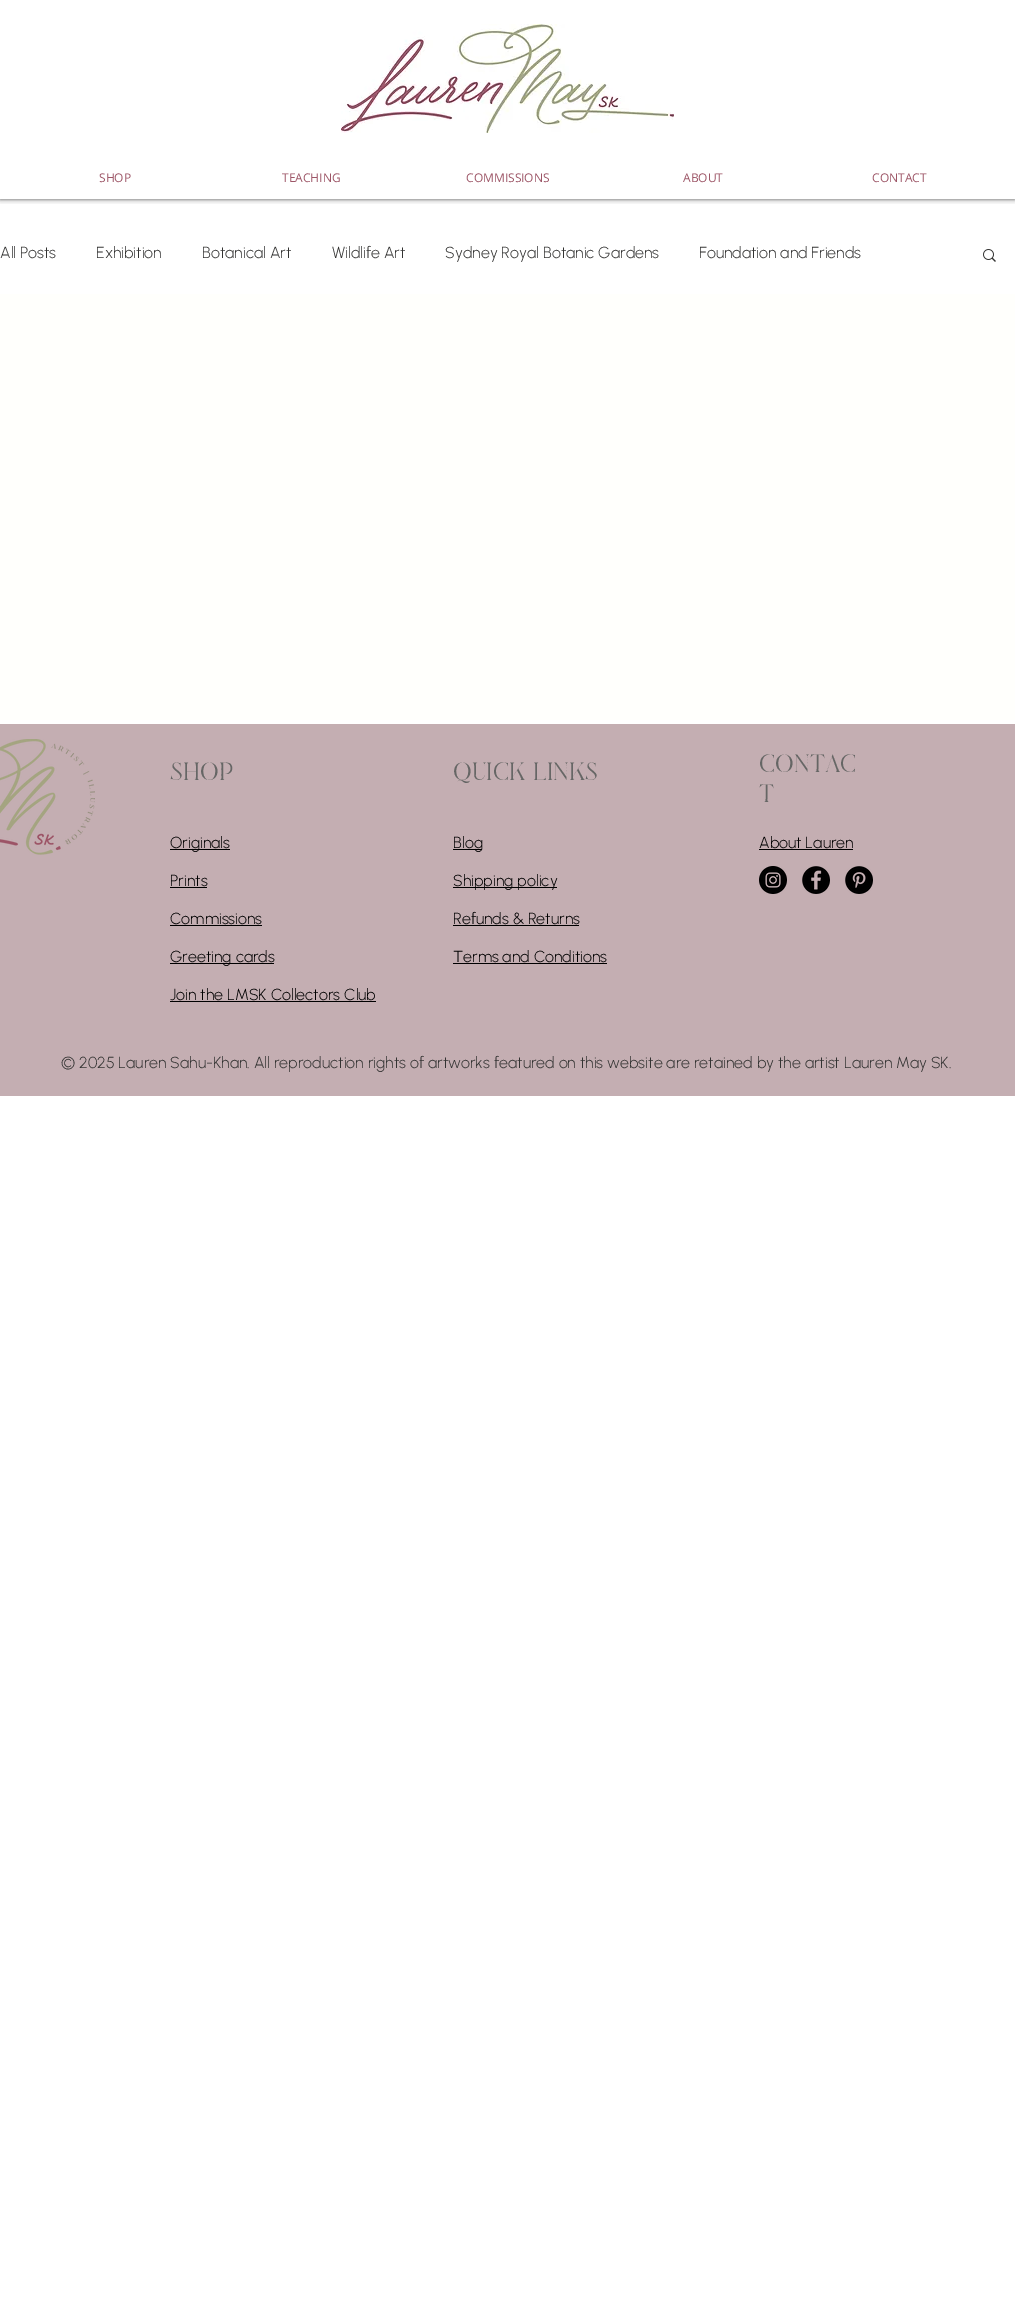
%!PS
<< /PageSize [1015 2303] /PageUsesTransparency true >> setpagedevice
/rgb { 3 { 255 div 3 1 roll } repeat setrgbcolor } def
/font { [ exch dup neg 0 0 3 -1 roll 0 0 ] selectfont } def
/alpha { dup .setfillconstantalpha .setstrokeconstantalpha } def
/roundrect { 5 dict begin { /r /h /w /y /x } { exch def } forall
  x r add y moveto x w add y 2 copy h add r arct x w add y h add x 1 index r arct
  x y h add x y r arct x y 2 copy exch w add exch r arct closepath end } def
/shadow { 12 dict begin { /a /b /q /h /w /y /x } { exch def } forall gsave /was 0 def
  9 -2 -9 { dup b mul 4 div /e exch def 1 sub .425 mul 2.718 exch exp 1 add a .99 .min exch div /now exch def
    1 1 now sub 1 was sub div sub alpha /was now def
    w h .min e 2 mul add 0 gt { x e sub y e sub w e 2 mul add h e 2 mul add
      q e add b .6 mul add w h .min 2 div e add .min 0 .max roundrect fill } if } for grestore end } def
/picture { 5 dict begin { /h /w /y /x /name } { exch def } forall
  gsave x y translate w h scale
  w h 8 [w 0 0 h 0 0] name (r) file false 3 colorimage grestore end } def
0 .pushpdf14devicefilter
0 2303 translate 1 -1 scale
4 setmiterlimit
255 255 255 rgb
0 0 1015 2303 rectfill
gsave
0 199 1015 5 rectclip
0 0 0 rgb
0 0 1015 199 0 2.5 0.7 shadow
grestore
(img/1.rgb) 341 24 333 109 picture
255 255 252 rgb
0 294 1015 426 rectfill
(img/2.rgb) 983 249 13 13 picture
196 174 178 rgb
0 724 1015 372 rectfill
(img/3.rgb) 0 739 95 116 picture
[
  [170 849 60 1 0 0 0]
  [170 887 37 1 0 0 0]
  [170 925 92 1 0 0 0]
  [170 963 104 1 0 0 0]
  [170 1001 206 1 0 0 0]
  [453 849 29 1 0 0 0]
  [453 887 104 1 0 0 0]
  [453 925 126 1 0 0 0]
  [453 963 154 1 0 0 0]
  [759 849 94 1 0 0 0]
] { aload pop rgb rectfill } forall
(img/4.rgb) 759 866 28 28 picture
(img/5.rgb) 802 866 28 28 picture
(img/6.rgb) 845 866 28 28 picture
/OpenSans-Regular 12 font
157 86 103 rgb
[
  [(SHOP) 99 182]
  [(TEACHING) 282 182]
  [(COMMISSIONS) 466 182]
  [(ABOUT) 683 182]
  [(CONTACT) 872 182]
] { aload pop moveto show } forall
/Urbanist-Light 16 font
51 51 50 rgb
[
  [(All Posts) 0 258]
  [(Exhibition) 96 258]
  [(Botanical Art) 202 258]
  [(Wildlife Art) 332 258]
  [(Sydney Royal Botanic Gardens) 445 258]
  [(Foundation and Friends) 699 258]
] { aload pop moveto show } forall
/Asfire-Bold 25 font
102 102 101 rgb
[
  [(Shop) 170 780]
  [(Quick Links) 453 780]
  [(Contac) 759 772]
  [(t) 759 802]
] { aload pop moveto show } forall
/Urbanist-Light 16 font
0 0 0 rgb
[
  [(Originals) 170 848]
  [(Prints) 170 886]
  [(Commissions) 170 924]
  [(Greeting cards) 170 962]
  [(Join the LMSK Collectors Club) 170 1000]
  [(Blog) 453 848]
  [(Shipping policy) 453 886]
  [(Refunds & Returns) 453 924]
  [(Terms and Conditions) 453 962]
  [(About Lauren) 759 848]
] { aload pop moveto show } forall
51 51 50 rgb
61 1068 moveto (© 2025 Lauren Sahu-Khan. All reproduction rights of artworks featured on this website are retained by the artist Lauren May SK.) show
.poppdf14devicefilter showpage
